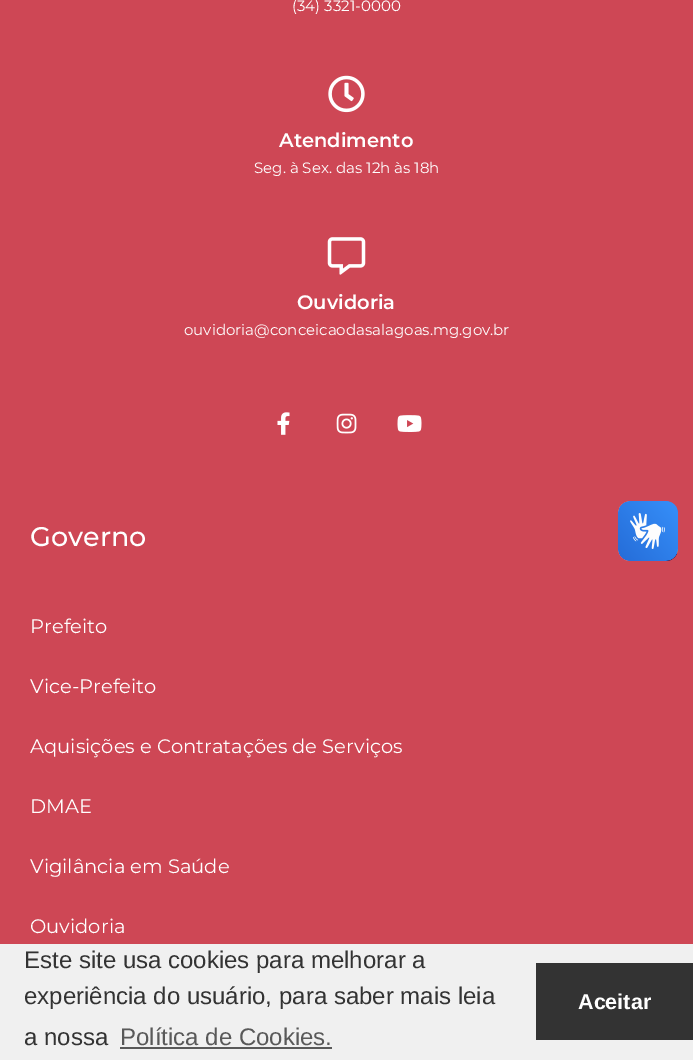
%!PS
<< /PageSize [693 1060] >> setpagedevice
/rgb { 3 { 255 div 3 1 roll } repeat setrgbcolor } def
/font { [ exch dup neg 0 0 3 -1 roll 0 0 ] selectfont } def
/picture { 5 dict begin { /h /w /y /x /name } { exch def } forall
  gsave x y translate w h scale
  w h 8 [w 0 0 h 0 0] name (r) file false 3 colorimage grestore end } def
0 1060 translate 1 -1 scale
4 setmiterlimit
206 71 85 rgb
0 0 693 1060 rectfill
(img/1.rgb) 328 75 37 38 picture
(img/2.rgb) 327 237 39 38 picture
(img/3.rgb) 277 412 13 23 picture
(img/4.rgb) 336 413 21 21 picture
(img/5.rgb) 397 415 25 17 picture
(img/6.rgb) 618 501 60 60 picture
(img/7.rgb) 618 501 60 60 picture
[
  [0 944 693 116 240 240 240]
  [120 1047 212 2 89 89 89]
  [536 963 157 77 51 51 51]
] { aload pop rgb rectfill } forall
/Montserrat-Regular 15 font
255 255 255 rgb
292 11 moveto (\(34\) 3321-0000) show
/Montserrat-SemiBold 19.5 font
279 147 moveto (Atendimento) show
/Montserrat-Regular 15 font
254 173 moveto (Seg. à Sex. das 12h às 18h) show
/Montserrat-SemiBold 19.5 font
297 309 moveto (Ouvidoria) show
/Montserrat-Regular 15 font
184 335 moveto (ouvidoria@conceicaodasalagoas.mg.gov.br) show
/Montserrat-Medium 27 font
30 546 moveto (Governo) show
/Montserrat-Regular 19.5 font
[
  [(Prefeito) 30 633]
  [(Vice-Prefeito) 30 693]
  [(Aquisições e Contratações de Serviços) 30 753]
  [(DMAE) 30 813]
  [(Vigilância em Saúde) 30 873]
  [(Ouvidoria) 30 933]
] { aload pop moveto show } forall
/LiberationSans-Regular 24 font
51 51 51 rgb
[
  [(Este site usa cookies para melhorar a) 24 968]
  [(experiência do usuário, para saber mais leia) 24 1004]
  [(a nossa) 24 1045]
] { aload pop moveto show } forall
89 89 89 rgb
120 1045 moveto (Política de Cookies.) show
/LiberationSans-Bold 21.5 font
255 255 255 rgb
578 1009 moveto (Aceitar) show
showpage
